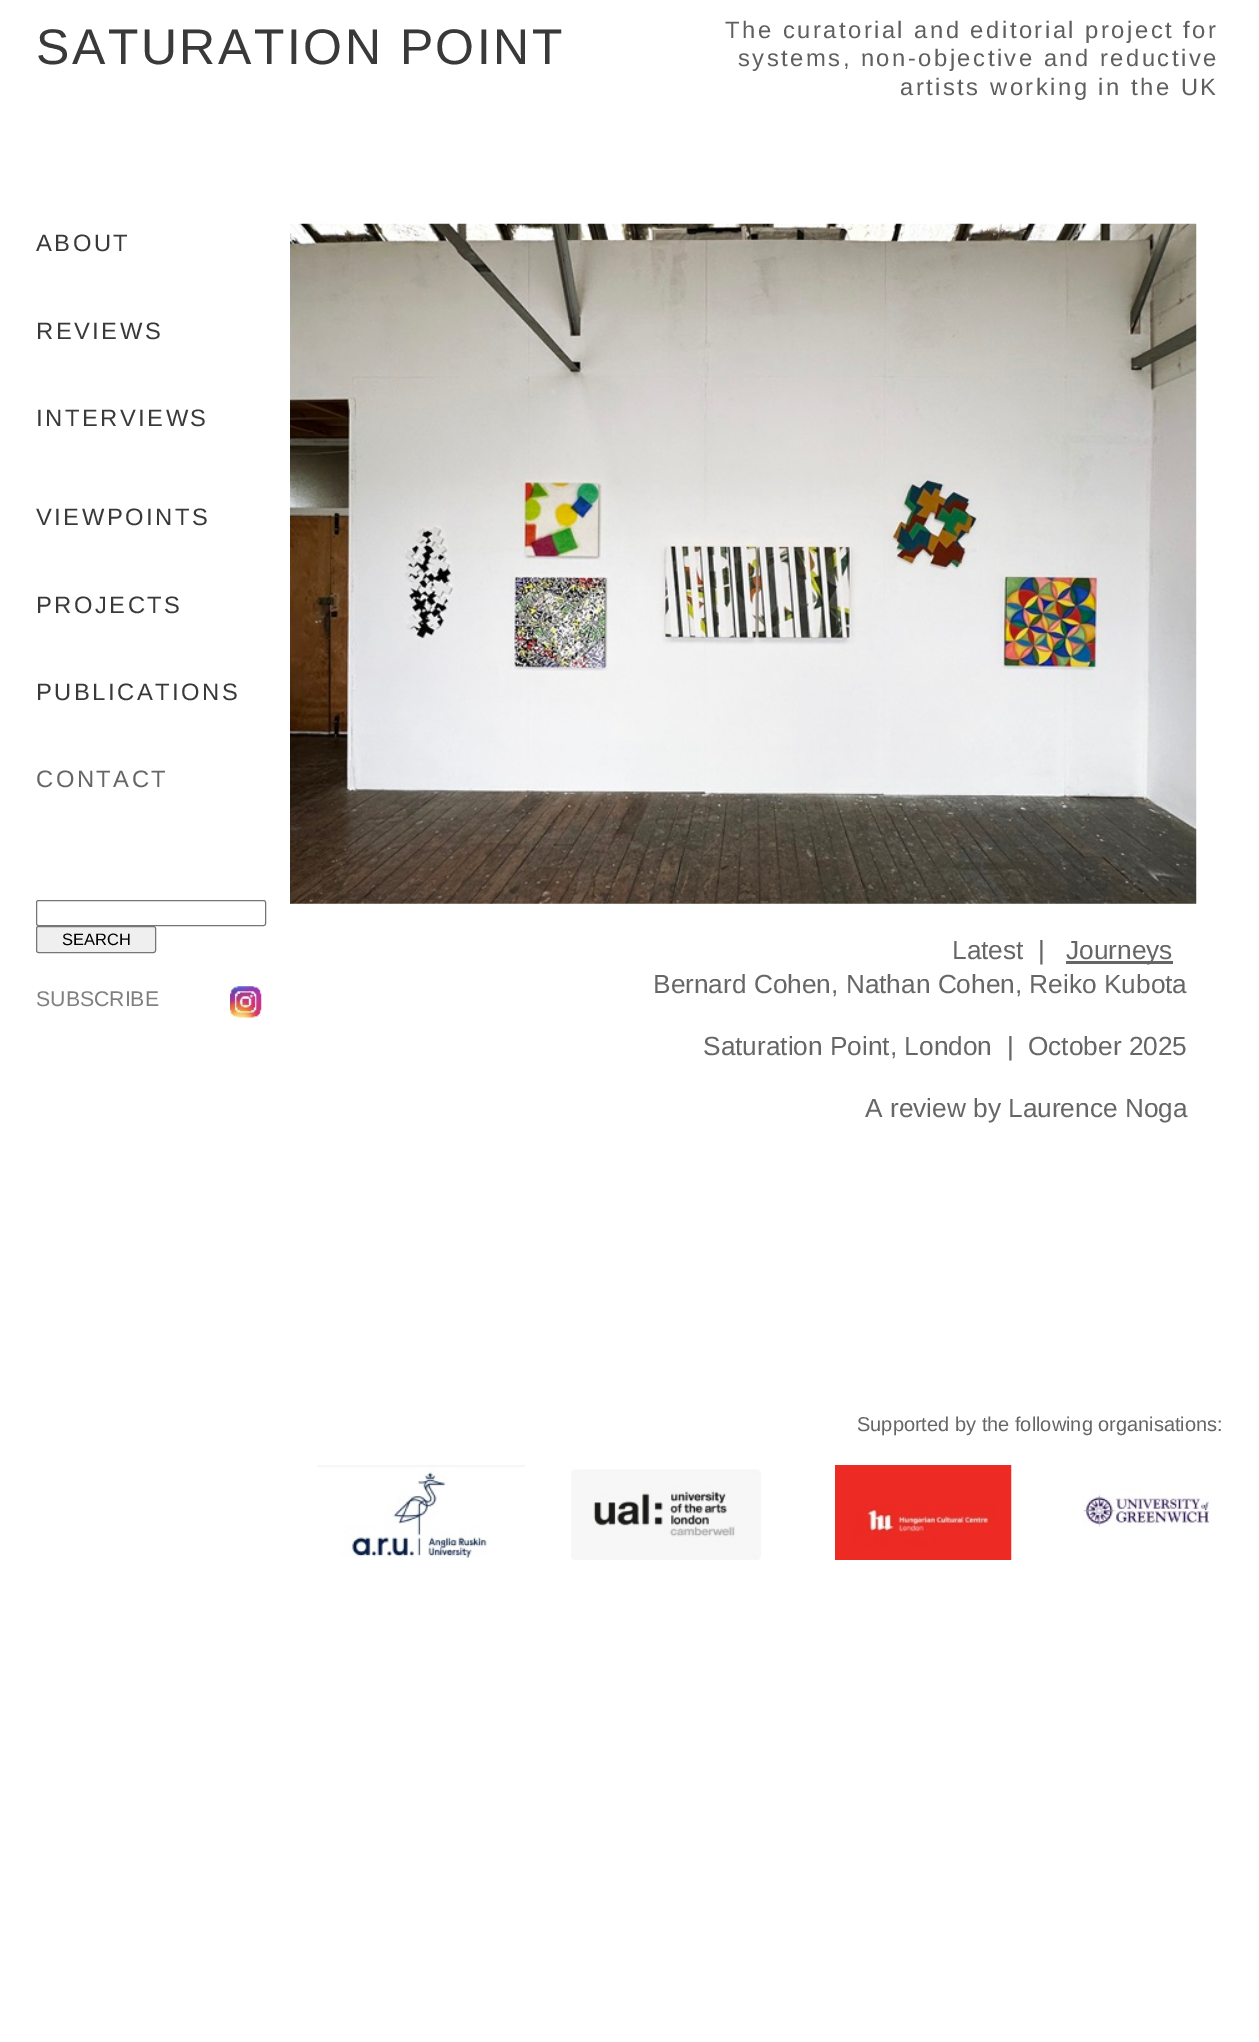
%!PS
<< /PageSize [1259 2042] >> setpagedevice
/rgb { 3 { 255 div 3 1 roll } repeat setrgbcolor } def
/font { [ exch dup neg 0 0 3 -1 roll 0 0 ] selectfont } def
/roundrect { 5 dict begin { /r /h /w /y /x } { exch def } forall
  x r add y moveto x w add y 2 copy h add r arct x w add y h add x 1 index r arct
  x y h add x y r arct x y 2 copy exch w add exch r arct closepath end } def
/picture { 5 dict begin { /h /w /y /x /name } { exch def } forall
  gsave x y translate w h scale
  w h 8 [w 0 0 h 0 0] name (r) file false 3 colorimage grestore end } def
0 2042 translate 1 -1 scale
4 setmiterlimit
255 255 255 rgb
0 0 1259 2042 rectfill
(img/1.rgb) 290 223 907 681 picture
118 118 118 rgb
36.5 900.5 229 25 2 roundrect stroke
239 239 239 rgb
36.5 926.5 119 26 2 roundrect gsave fill grestore
118 118 118 rgb
stroke
(img/2.rgb) 230 986 32 32 picture
102 102 102 rgb
1066 961 107 3 rectfill
(img/3.rgb) 317 1465 208 93 picture
(img/4.rgb) 571 1469 190 91 picture
(img/5.rgb) 835 1465 177 95 picture
(img/6.rgb) 1082 1486 129 41 picture
/LiberationSans-Regular 50 font
57 57 57 rgb
36 64 moveto 2.5 0 (SATURATION POINT) ashow
/LiberationSans-Regular 23.75 font
95 95 95 rgb
725 38 moveto 2.5 0 (The curatorial and editorial project for) ashow
738 66 moveto 2.5 0 (systems, non-objective and reductive) ashow
900 95 moveto 2.5 0 (artists working in the UK) ashow
57 57 57 rgb
36 251 moveto 2.5 0 (ABOUT) ashow
36 339 moveto 2.5 0 (REVIEWS) ashow
36 426 moveto 2.5 0 (INTERVIEWS) ashow
36 525 moveto 2.5 0 (VIEWPOINTS) ashow
36 613 moveto 2.5 0 (PROJECTS) ashow
36 700 moveto 2.5 0 (PUBLICATIONS) ashow
102 102 102 rgb
36 787 moveto 2.5 0 (CONTACT) ashow
/LiberationSans-Regular 16.5 font
0 0 0 rgb
62 945 moveto (SEARCH) show
/LiberationSans-Regular 26.25 font
102 102 102 rgb
[
  [(Latest  |) 952 959]
  [(Journeys) 1066 959]
  [(Bernard Cohen, Nathan Cohen, Reiko Kubota) 653 993]
  [(Saturation Point, London  |  October 2025) 703 1055]
  [(A review by Laurence Noga) 865 1117]
] { aload pop moveto show } forall
/LiberationSans-Regular 21.25 font
128 128 128 rgb
36 1006 moveto (SUBSCRIBE) show
/LiberationSans-Regular 20 font
102 102 102 rgb
857 1431 moveto (Supported by the following organisations:) show
showpage
